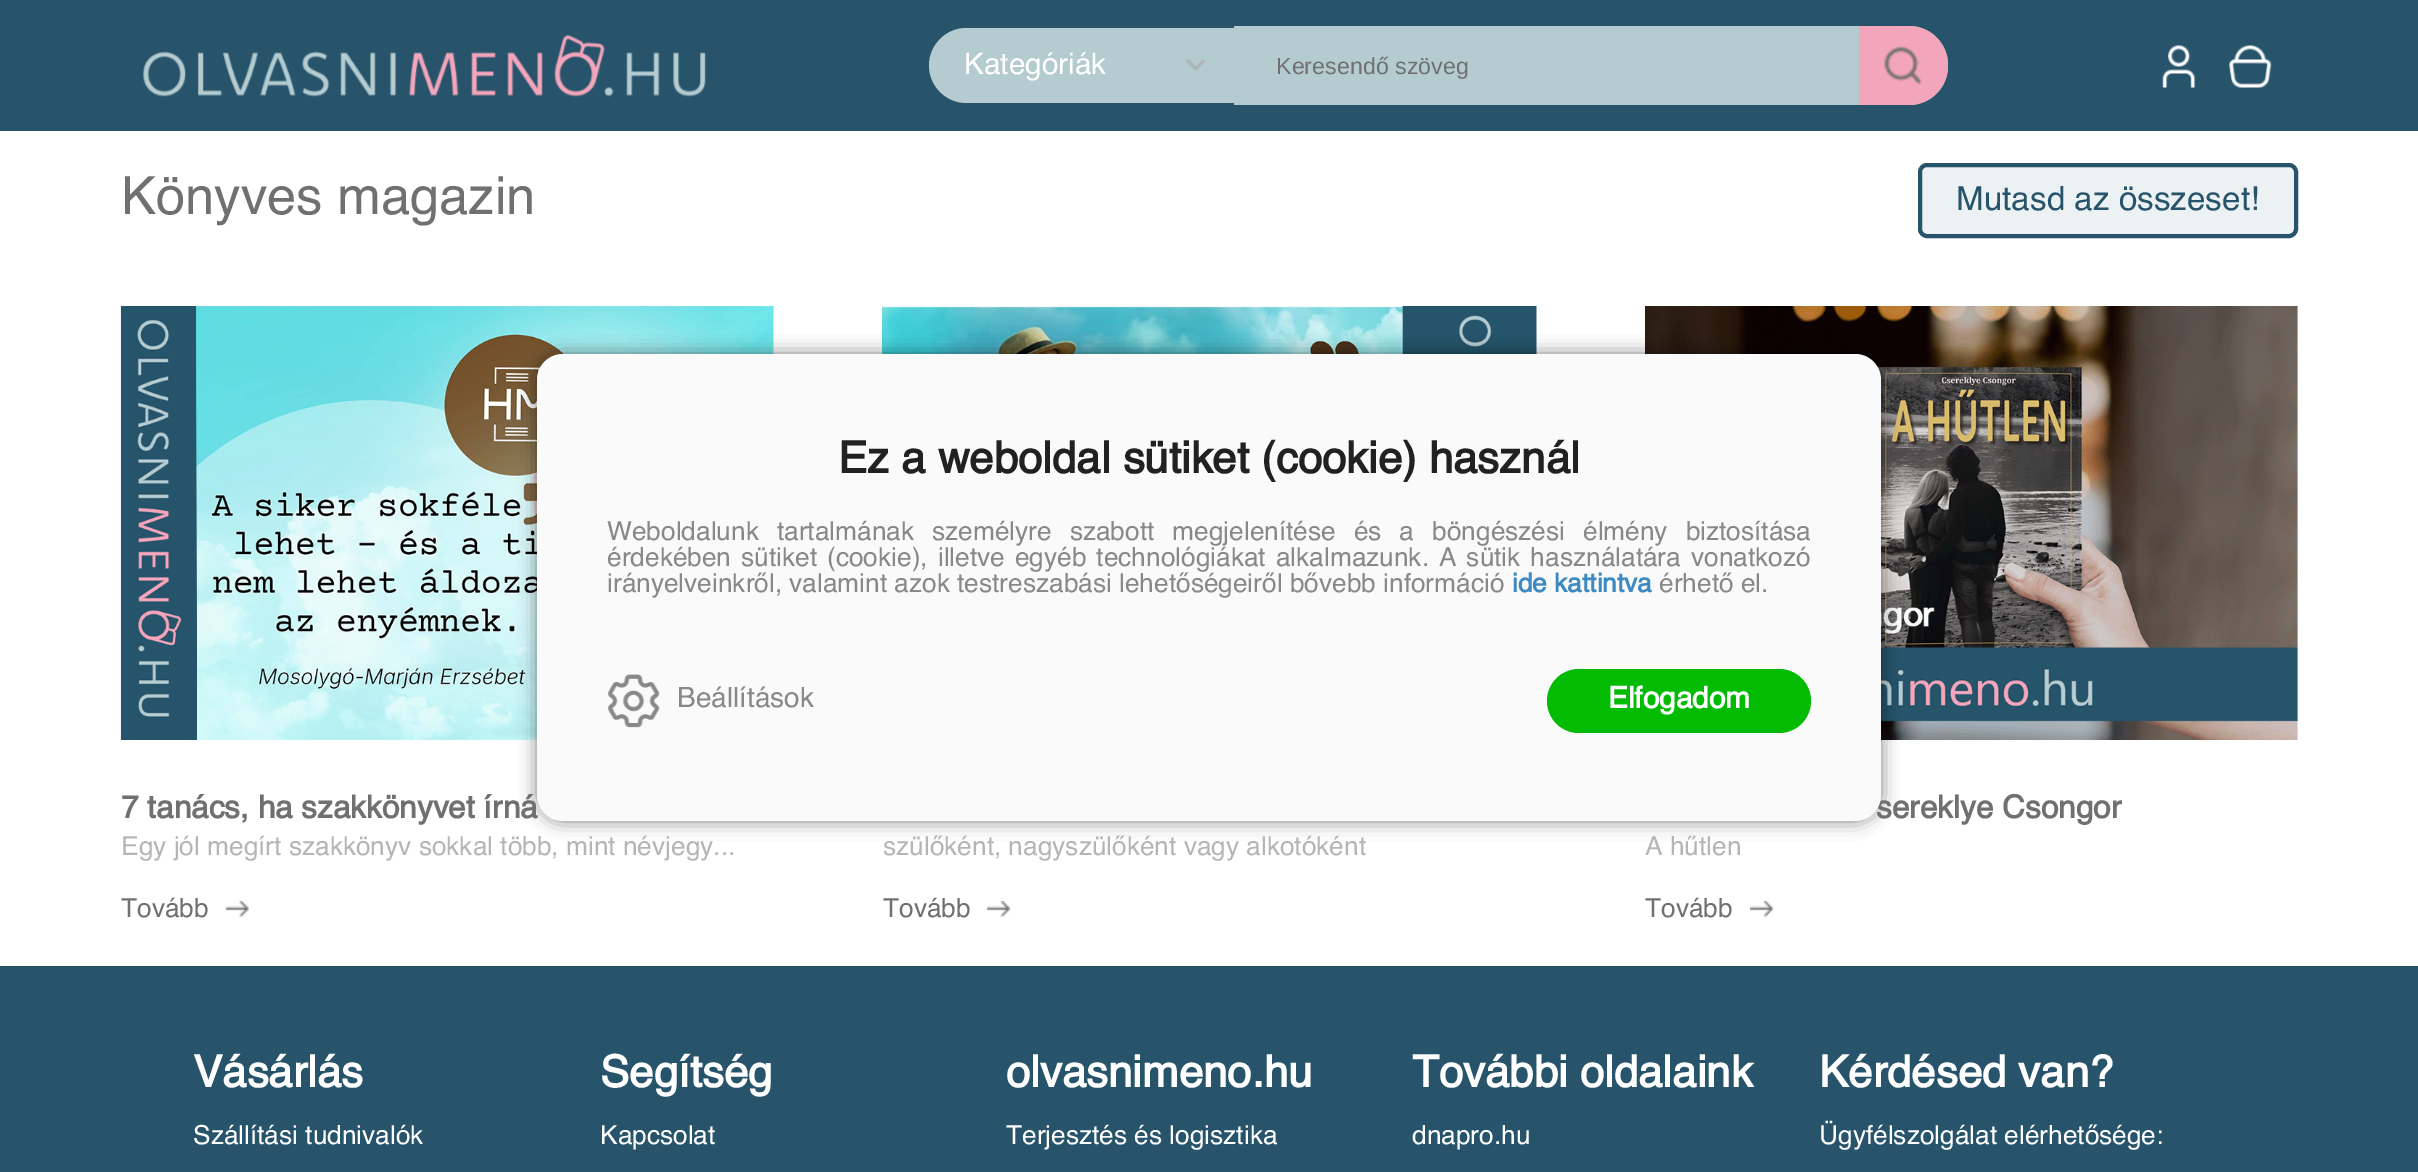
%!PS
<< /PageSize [2418 1172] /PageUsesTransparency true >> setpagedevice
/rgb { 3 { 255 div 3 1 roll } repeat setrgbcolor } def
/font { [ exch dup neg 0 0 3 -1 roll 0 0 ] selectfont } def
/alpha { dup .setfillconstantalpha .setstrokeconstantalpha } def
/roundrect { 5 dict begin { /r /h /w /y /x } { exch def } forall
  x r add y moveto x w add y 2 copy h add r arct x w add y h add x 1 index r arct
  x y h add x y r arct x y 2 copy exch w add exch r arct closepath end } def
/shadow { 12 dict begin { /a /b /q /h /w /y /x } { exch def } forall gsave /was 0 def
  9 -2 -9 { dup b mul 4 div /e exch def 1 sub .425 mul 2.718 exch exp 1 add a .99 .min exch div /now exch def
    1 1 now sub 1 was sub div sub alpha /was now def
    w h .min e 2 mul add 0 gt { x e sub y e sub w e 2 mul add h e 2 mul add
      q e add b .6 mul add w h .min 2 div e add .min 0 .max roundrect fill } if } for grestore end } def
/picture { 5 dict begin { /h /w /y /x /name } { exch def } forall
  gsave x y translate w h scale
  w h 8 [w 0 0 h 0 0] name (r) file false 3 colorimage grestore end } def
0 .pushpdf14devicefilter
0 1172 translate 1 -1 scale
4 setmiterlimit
255 255 255 rgb
0 0 2418 1172 rectfill
39 84 107 rgb
0 0 2418 131 rectfill
(img/1.rgb) 143 35 563 62 picture
180 203 208 rgb
966.5 28 moveto 1234 28 lineto 1234 103 lineto 966.5 103 lineto 946 103 929 86 929 65.5 curveto 929 45 946 28 966.5 28 curveto closepath fill
(img/2.rgb) 1186 59 20 12 picture
1234 26 moveto 1908.5 26 lineto 1930.5 26 1948 43.5 1948 65.5 curveto 1948 87.5 1930.5 105 1908.5 105 curveto 1234 105 lineto closepath fill
243 165 187 rgb
1859 26 moveto 1908.5 26 lineto 1930.5 26 1948 43.5 1948 65.5 curveto 1948 87.5 1930.5 105 1908.5 105 curveto 1859 105 lineto closepath fill
(img/3.rgb) 1884 46 38 39 picture
(img/4.rgb) 2162 45 34 43 picture
(img/5.rgb) 2229 45 43 43 picture
236 242 243 rgb
1920 165 376 71 7 roundrect gsave fill grestore
39 84 107 rgb
4 setlinewidth
stroke
(img/6.rgb) 120 306 654 434 picture
(img/7.rgb) 225 901 24 16 picture
(img/8.rgb) 882 306 655 48 picture
(img/9.rgb) 987 901 24 16 picture
(img/10.rgb) 1645 306 653 434 picture
(img/9.rgb) 1750 901 24 16 picture
0 966 2418 206 rectfill
gsave
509 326 moveto 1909 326 lineto 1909 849 lineto 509 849 lineto closepath 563 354 moveto 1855 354 lineto 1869.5 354 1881 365.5 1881 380 curveto 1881 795 lineto 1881 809.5 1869.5 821 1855 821 curveto 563 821 lineto 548.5 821 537 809.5 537 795 curveto 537 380 lineto 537 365.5 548.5 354 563 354 curveto closepath eoclip newpath
0 0 0 rgb
537 354 1344 467 26 9 0.5 shadow
grestore
/Helvetica-Regular 29.75 font
255 255 255 rgb
964 74 moveto (Kategóriák) show
/LiberationSans-Regular 23.25 font
112 112 112 rgb
1276 74 moveto (Keresendő szöveg) show
/Helvetica-Regular 52.5 font
121 214 moveto (Könyves magazin) show
/Helvetica-Regular 33.25 font
39 84 107 rgb
1956 210 moveto (Mutasd az összeset!) show
/Helvetica-Bold 31.5 font
112 112 112 rgb
121 818 moveto (7 tanács, ha szakkönyvet írná) show
/Helvetica-Regular 26.25 font
181 181 181 rgb
121 855 moveto (Egy jól megírt szakkönyv sokkal több, mint névjegy...) show
112 112 112 rgb
121 917 moveto (Tovább) show
181 181 181 rgb
883 855 moveto (szülőként, nagyszülőként vagy alkotóként) show
112 112 112 rgb
883 917 moveto (Tovább) show
/Helvetica-Bold 31.5 font
1876 818 moveto (sereklye Csongor) show
/Helvetica-Regular 26.25 font
181 181 181 rgb
1645 855 moveto (A hűtlen) show
112 112 112 rgb
1645 917 moveto (Tovább) show
/Helvetica-Bold 43.75 font
255 255 255 rgb
193 1087 moveto (Vásárlás) show
/Helvetica-Regular 26.25 font
193 1144 moveto (Szállítási tudnivalók) show
/Helvetica-Bold 43.75 font
600 1087 moveto (Segítség) show
/Helvetica-Regular 26.25 font
600 1144 moveto (Kapcsolat) show
/Helvetica-Bold 43.75 font
1006 1087 moveto (olvasnimeno.hu) show
/Helvetica-Regular 26.25 font
1006 1144 moveto (Terjesztés és logisztika) show
/Helvetica-Bold 43.75 font
1412 1087 moveto (További oldalaink) show
/Helvetica-Regular 26.25 font
1412 1144 moveto (dnapro.hu) show
/Helvetica-Bold 43.75 font
1819 1087 moveto (Kérdésed van?) show
/Helvetica-Regular 26.25 font
1819 1144 moveto (Ügyfélszolgálat elérhetősége:) show
250 250 250 rgb
537 354 1344 467 26 roundrect fill
/Helvetica-Bold 43.75 font
33 33 33 rgb
838 473 moveto (Ez a weboldal sütiket \(cookie\) használ) show
/Helvetica-Regular 26.25 font
136 136 136 rgb
607 540 moveto 10.75 0 32 (Weboldalunk tartalmának személyre szabott megjelenítése és a böngészési élmény biztosítása) widthshow
607 566 moveto 2.75 0 32 (érdekében sütiket \(cookie\), illetve egyéb technológiákat alkalmazunk. A sütik használatára vonatkozó) widthshow
607 592 moveto (irányelveinkről, valamint azok testreszabási lehetőségeiről bővebb információ) show
/Helvetica-Bold 26.25 font
60 138 193 rgb
1512 592 moveto (ide kattintva) show
/Helvetica-Regular 26.25 font
136 136 136 rgb
1659 592 moveto (érhető el.) show
(img/11.rgb) 607 674 53 54 picture
/Helvetica-Regular 28 font
677 707 moveto (Beállítások) show
2 187 2 rgb
1547 669 264 64 32 roundrect fill
/Helvetica-Bold 29.75 font
255 255 255 rgb
1608 708 moveto (Elfogadom) show
.poppdf14devicefilter showpage
